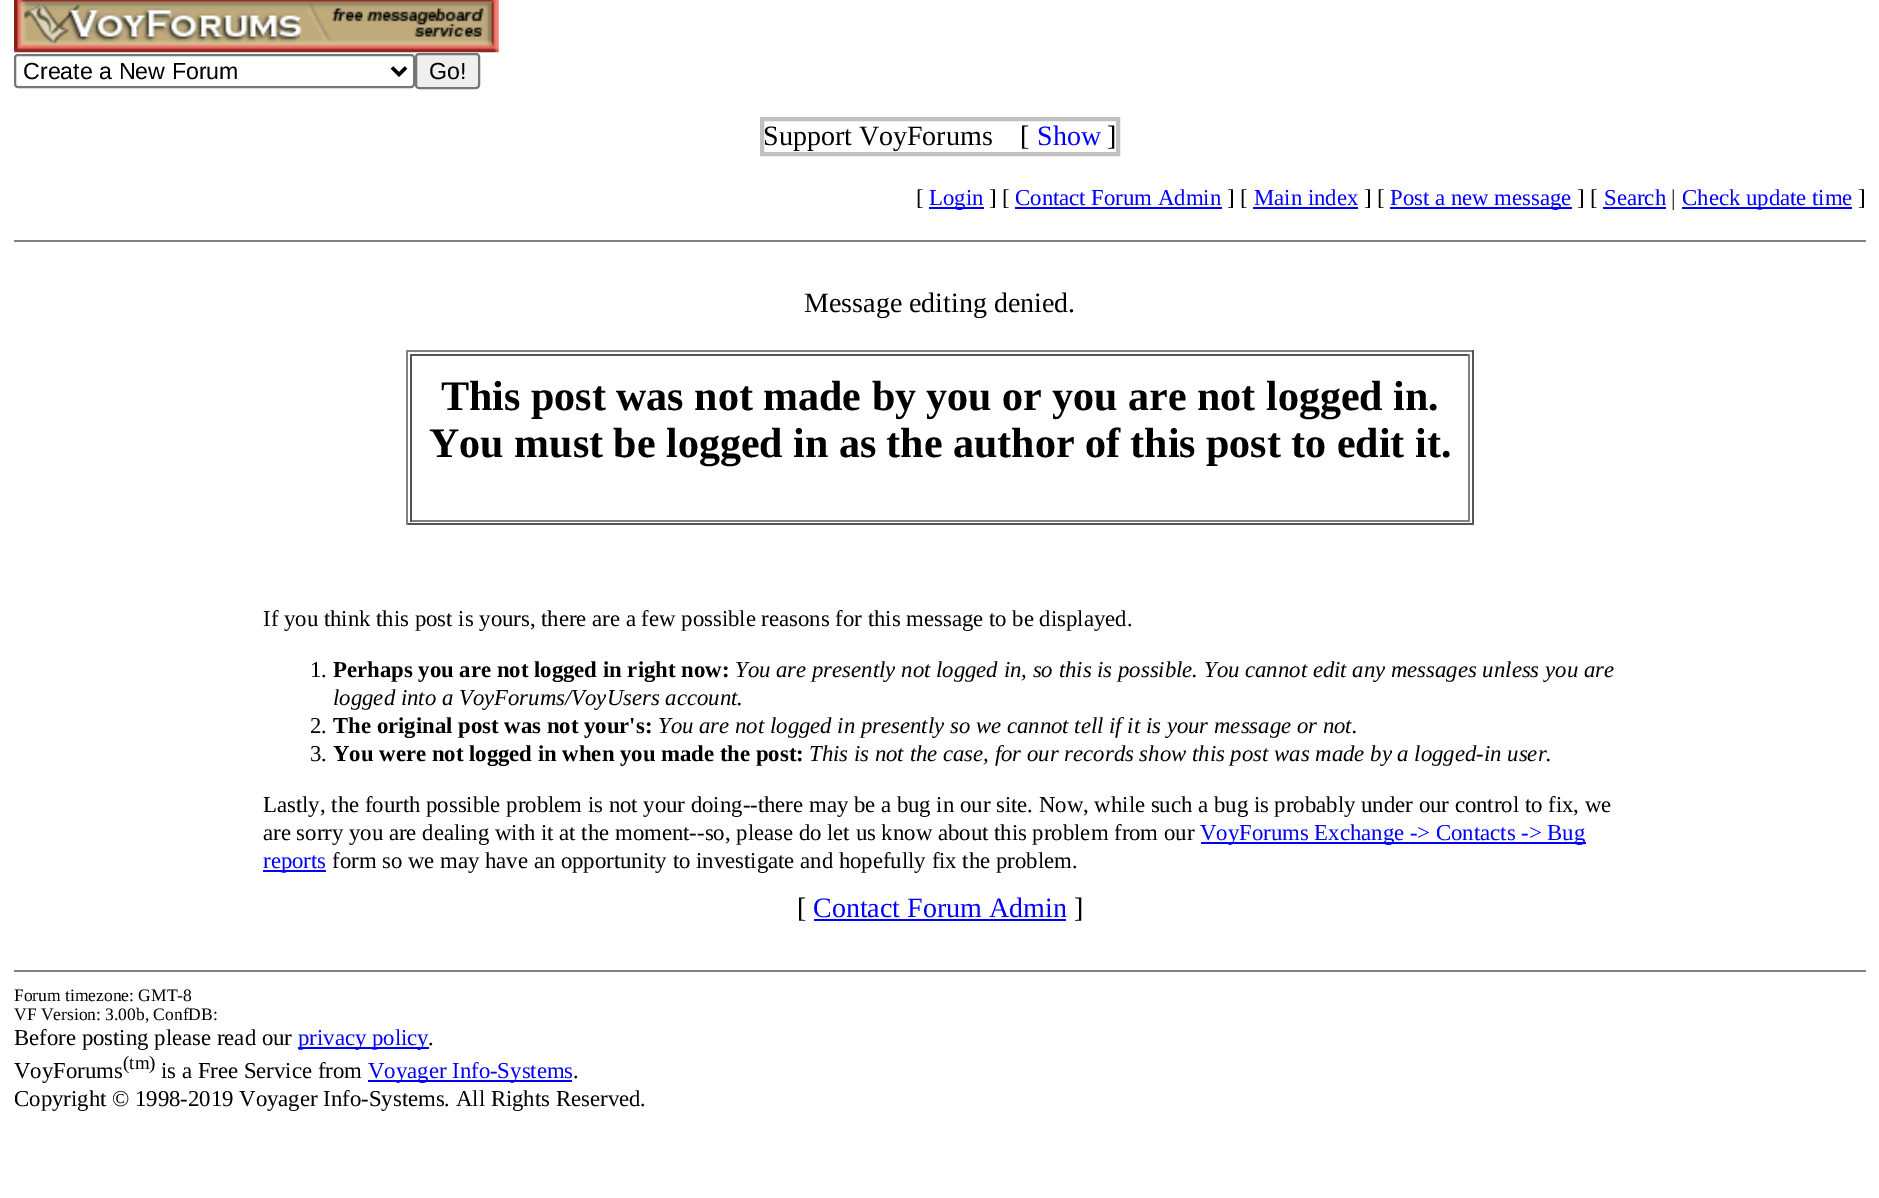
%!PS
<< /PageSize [1879 1198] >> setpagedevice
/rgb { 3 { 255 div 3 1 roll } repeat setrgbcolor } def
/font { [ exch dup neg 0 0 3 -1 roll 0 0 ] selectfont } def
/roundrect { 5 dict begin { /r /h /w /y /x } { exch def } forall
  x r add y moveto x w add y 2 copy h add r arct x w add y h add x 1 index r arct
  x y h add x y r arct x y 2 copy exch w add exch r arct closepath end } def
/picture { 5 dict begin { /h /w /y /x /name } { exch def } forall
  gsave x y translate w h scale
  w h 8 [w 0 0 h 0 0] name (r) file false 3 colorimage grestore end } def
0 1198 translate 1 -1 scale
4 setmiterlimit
255 255 255 rgb
0 0 1879 1198 rectfill
(img/1.rgb) 14 0 485 53 picture
118 118 118 rgb
2 setlinewidth
15 55 399 32 3 roundrect stroke
0 0 0 rgb
3.5 setlinewidth
392 67.5 moveto 399 74.5 lineto 406 67.5 lineto stroke
239 239 239 rgb
416 54 63 34 3 roundrect gsave fill grestore
118 118 118 rgb
2 setlinewidth
stroke
192 192 192 rgb
4 setlinewidth
762 119 356 35 rectstroke
[
  [929 207 55 2 0 0 255]
  [1015 207 207 2 0 0 255]
  [1253 207 105 2 0 0 255]
  [1390 207 182 2 0 0 255]
  [1603 207 63 2 0 0 255]
  [1682 207 170 2 0 0 255]
  [14 240 1852 2 128 128 128]
  [406 350 1068 2 128 128 128]
  [1472 350 2 175 85 85 85]
  [406 523 1068 2 85 85 85]
  [406 350 2 175 128 128 128]
  [410 354 1060 2 85 85 85]
  [1468 354 2 168 128 128 128]
  [410 520 1060 2 128 128 128]
  [410 354 2 168 85 85 85]
  [1201 842 385 2 0 0 255]
  [263 870 63 2 0 0 255]
  [814 919 252 2 0 0 255]
  [14 970 1852 2 128 128 128]
  [298 1047 131 2 0 0 255]
  [368 1080 204 2 0 0 255]
] { aload pop rgb rectfill } forall
/LiberationSans-Regular 23.25 font
0 0 0 rgb
23 79 moveto (Create a New Forum) show
429 79 moveto (Go!) show
/LiberationSerif-Regular 28 font
763 145 moveto (Support VoyForums) show
1020 145 moveto ([) show
0 0 255 rgb
1037 145 moveto (Show) show
0 0 0 rgb
1107 145 moveto (]) show
/LiberationSerif-Regular 22.75 font
916 205 moveto ([) show
0 0 255 rgb
929 205 moveto (Login) show
0 0 0 rgb
989 205 moveto (] [) show
0 0 255 rgb
1015 205 moveto (Contact Forum Admin) show
0 0 0 rgb
1227 205 moveto (] [) show
0 0 255 rgb
1254 205 moveto (Main index) show
0 0 0 rgb
1364 205 moveto (] [) show
0 0 255 rgb
1390 205 moveto (Post a new message) show
0 0 0 rgb
1577 205 moveto (] [) show
0 0 255 rgb
1604 205 moveto (Search) show
0 0 0 rgb
1671 205 moveto (|) show
0 0 255 rgb
1682 205 moveto (Check update time) show
0 0 0 rgb
1858 205 moveto (]) show
/LiberationSerif-Regular 28 font
804 312 moveto (Message editing denied.) show
/LiberationSerif-Bold 42 font
441 410 moveto (This post was not made by you or you are not logged in.) show
429 457 moveto (You must be logged in as the author of this post to edit it.) show
/LiberationSerif-Regular 22.75 font
263 626 moveto (If you think this post is yours, there are a few possible reasons for this message to be displayed.) show
310 677 moveto (1.) show
/LiberationSerif-Bold 22.75 font
333 677 moveto (Perhaps you are not logged in right now:) show
/LiberationSerif-Italic 22.75 font
735 677 moveto (You are presently not logged in, so this is possible. You cannot edit any messages unless you are) show
333 705 moveto (logged into a VoyForums/VoyUsers account.) show
/LiberationSerif-Regular 22.75 font
310 733 moveto (2.) show
/LiberationSerif-Bold 22.75 font
333 733 moveto (The original post was not your's:) show
/LiberationSerif-Italic 22.75 font
658 733 moveto (You are not logged in presently so we cannot tell if it is your message or not.) show
/LiberationSerif-Regular 22.75 font
310 761 moveto (3.) show
/LiberationSerif-Bold 22.75 font
333 761 moveto (You were not logged in when you made the post:) show
/LiberationSerif-Italic 22.75 font
809 761 moveto (This is not the case, for our records show this post was made by a logged-in user.) show
/LiberationSerif-Regular 22.75 font
263 812 moveto (Lastly, the fourth possible problem is not your doing--there may be a bug in our site. Now, while such a bug is probably under our control to fix, we) show
263 840 moveto (are sorry you are dealing with it at the moment--so, please do let us know about this problem from our) show
0 0 255 rgb
1200 840 moveto (VoyForums Exchange -> Contacts -> Bug) show
263 868 moveto (reports) show
0 0 0 rgb
332 868 moveto (form so we may have an opportunity to investigate and hopefully fix the problem.) show
/LiberationSerif-Regular 28 font
797 917 moveto ([) show
0 0 255 rgb
813 917 moveto (Contact Forum Admin) show
0 0 0 rgb
1074 917 moveto (]) show
/LiberationSerif-Regular 17.5 font
14 1001 moveto (Forum timezone: GMT-8) show
14 1020 moveto (VF Version: 3.00b, ConfDB:) show
/LiberationSerif-Regular 22.75 font
14 1045 moveto (Before posting please read our) show
0 0 255 rgb
298 1045 moveto (privacy policy) show
0 0 0 rgb
428 1045 moveto (.) show
14 1078 moveto (VoyForums) show
/LiberationSerif-Regular 19 font
123 1069 moveto (\(tm\)) show
/LiberationSerif-Regular 22.75 font
161 1078 moveto (is a Free Service from) show
0 0 255 rgb
368 1078 moveto (Voyager Info-Systems) show
0 0 0 rgb
573 1078 moveto (.) show
14 1106 moveto (Copyright © 1998-2019 Voyager Info-Systems. All Rights Reserved.) show
showpage
